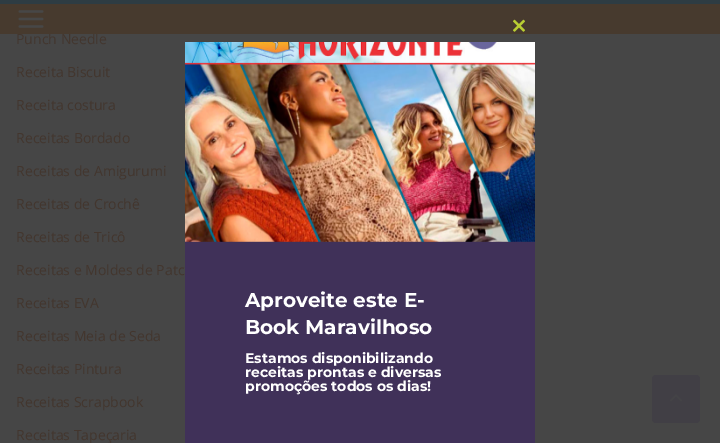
%!PS
<< /PageSize [720 443] >> setpagedevice
/rgb { 3 { 255 div 3 1 roll } repeat setrgbcolor } def
/font { [ exch dup neg 0 0 3 -1 roll 0 0 ] selectfont } def
/roundrect { 5 dict begin { /r /h /w /y /x } { exch def } forall
  x r add y moveto x w add y 2 copy h add r arct x w add y h add x 1 index r arct
  x y h add x y r arct x y 2 copy exch w add exch r arct closepath end } def
/picture { 5 dict begin { /h /w /y /x /name } { exch def } forall
  gsave x y translate w h scale
  w h 8 [w 0 0 h 0 0] name (r) file false 3 colorimage grestore end } def
0 443 translate 1 -1 scale
4 setmiterlimit
70 70 70 rgb
0 0 720 443 rectfill
46 60 67 rgb
0 0 720 4 rectfill
65 63 69 rgb
652 375 48 48 4 roundrect fill
(img/2.rgb) 670 394 12 8 picture
64 49 89 rgb
185 241 350 202 rectfill
(img/4.rgb) 185 42 350 200 picture
/OpenSans-Regular 14 font
67 54 46 rgb
16 44 moveto (Punch Needle) show
71 58 46 rgb
0 4 720 30 rectfill
(img/1.rgb) 18 10 26 18 picture
67 54 46 rgb
[
  [(Receita Biscuit) 16 77]
  [(Receita costura) 16 110]
  [(Receitas Bordado) 16 143]
  [(Receitas de Amigurumi) 16 176]
  [(Receitas de Crochê) 16 209]
  [(Receitas de Tricô) 16 242]
  [(Receitas e Moldes de Patc) 16 275]
  [(Receitas EVA) 16 308]
  [(Receitas Meia de Seda) 16 341]
  [(Receitas Pintura) 16 374]
  [(Receitas Scrapbook) 16 407]
  [(Receitas Tapeçaria) 16 440]
] { aload pop moveto show } forall
(img/3.rgb) 513 19 12 13 picture
/Montserrat-Thin 20 font
255 255 255 rgb
245 307 moveto (Aproveite este E-) show
245 334 moveto (Book Maravilhoso) show
/Montserrat-Thin 14 font
[
  [(Estamos disponibilizando) 245 363]
  [(receitas prontas e diversas) 245 377]
  [(promoções todos os dias!) 245 391]
] { aload pop moveto show } forall
showpage
